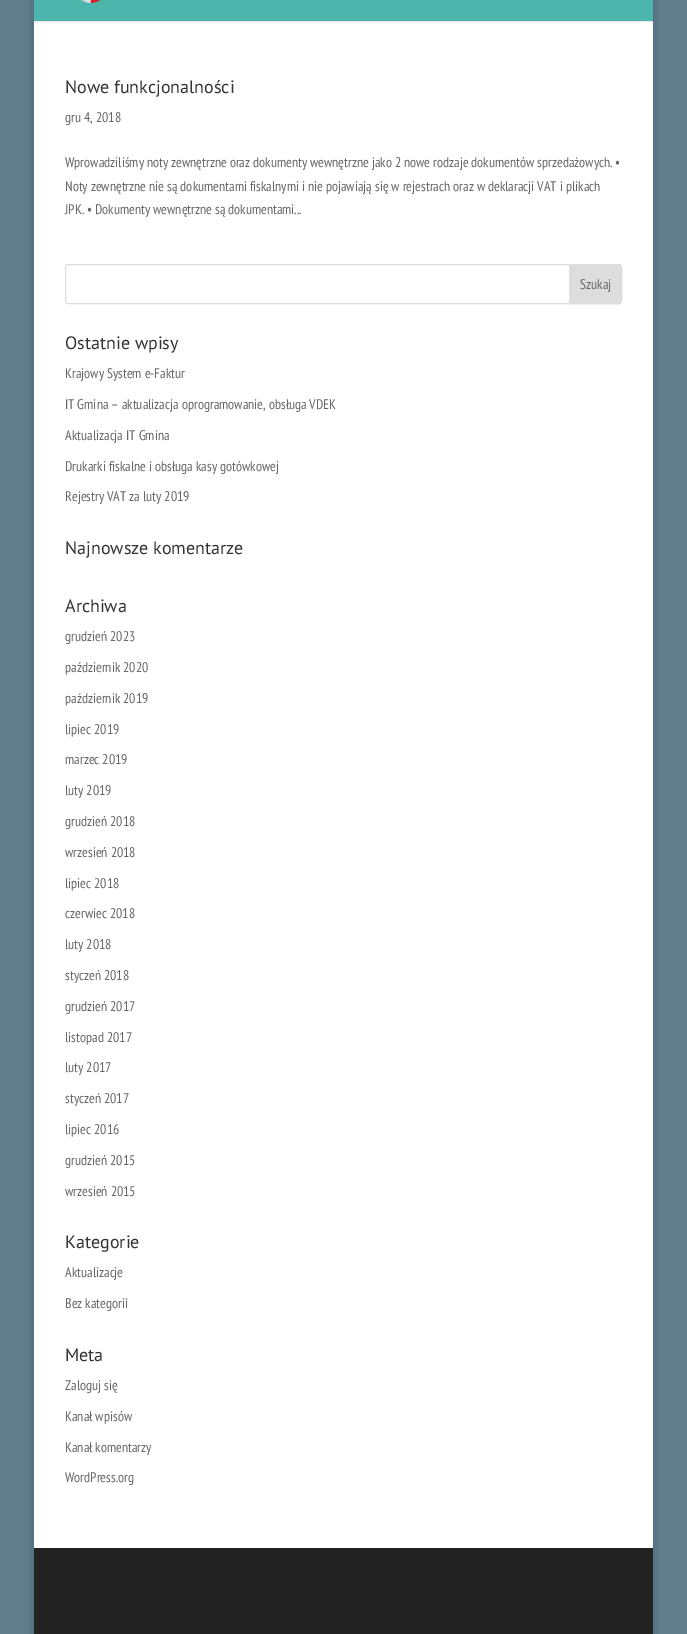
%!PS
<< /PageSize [687 1634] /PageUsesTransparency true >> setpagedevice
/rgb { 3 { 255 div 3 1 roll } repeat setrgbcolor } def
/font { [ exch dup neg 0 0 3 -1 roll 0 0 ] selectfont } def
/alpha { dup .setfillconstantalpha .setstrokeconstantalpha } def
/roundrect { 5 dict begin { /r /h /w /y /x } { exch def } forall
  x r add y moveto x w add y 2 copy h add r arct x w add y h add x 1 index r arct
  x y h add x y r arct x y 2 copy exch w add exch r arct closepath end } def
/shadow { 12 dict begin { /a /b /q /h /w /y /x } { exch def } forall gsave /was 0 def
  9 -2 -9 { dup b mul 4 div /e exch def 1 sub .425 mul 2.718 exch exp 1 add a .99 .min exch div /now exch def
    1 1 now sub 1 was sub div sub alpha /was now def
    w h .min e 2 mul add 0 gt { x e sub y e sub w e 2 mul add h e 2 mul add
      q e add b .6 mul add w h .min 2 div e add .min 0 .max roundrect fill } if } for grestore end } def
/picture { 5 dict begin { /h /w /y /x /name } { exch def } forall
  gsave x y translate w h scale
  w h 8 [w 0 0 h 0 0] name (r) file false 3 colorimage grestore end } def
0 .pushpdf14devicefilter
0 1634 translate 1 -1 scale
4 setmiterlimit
96 125 139 rgb
0 0 687 1634 rectfill
0 0 0 rgb
34 -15 619 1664 0 5 0.2 shadow
230 230 230 rgb
34 21 619 1 rectfill
77 182 172 rgb
34 0 619 21 rectfill
(img/1.rgb) 81 0 20 3 picture
255 255 255 rgb
34 22 619 1526 rectfill
221 221 221 rgb
65.5 264.5 556 39 2.5 roundrect stroke
569.5 264.5 moveto 619 264.5 lineto 620.5 264.5 621.5 265.5 621.5 267 curveto 621.5 301 lineto 621.5 302.5 620.5 303.5 619 303.5 curveto 569.5 303.5 lineto closepath gsave fill grestore
stroke
34 34 34 rgb
34 1548 619 86 rectfill
/PTSans-Regular 18 font
51 51 51 rgb
65 93 moveto (Nowe funkcjonalności) show
/PTSansNarrow-Regular 14 font
102 102 102 rgb
[
  [(gru 4, 2018) 65 122]
  [(Wprowadziliśmy noty zewnętrzne oraz dokumenty wewnętrzne jako 2 nowe rodzaje dokumentów sprzedażowych. •) 65 167]
  [(Noty zewnętrzne nie są dokumentami fiskalnymi i nie pojawiają się w rejestrach oraz w deklaracji VAT i plikach) 65 191]
  [(JPK. • Dokumenty wewnętrzne są dokumentami...) 65 214]
  [(Szukaj) 580 289]
] { aload pop moveto show } forall
/PTSans-Regular 18 font
51 51 51 rgb
65 349 moveto (Ostatnie wpisy) show
/PTSansNarrow-Regular 14 font
102 102 102 rgb
[
  [(Krajowy System e-Faktur) 65 378]
  [(IT Gmina – aktualizacja oprogramowanie, obsługa VDEK) 65 409]
  [(Aktualizacja IT Gmina) 65 440]
  [(Drukarki fiskalne i obsługa kasy gotówkowej) 65 471]
  [(Rejestry VAT za luty 2019) 65 501]
] { aload pop moveto show } forall
/PTSans-Regular 18 font
51 51 51 rgb
65 554 moveto (Najnowsze komentarze) show
65 612 moveto (Archiwa) show
/PTSansNarrow-Regular 14 font
102 102 102 rgb
[
  [(grudzień 2023) 65 641]
  [(październik 2020) 65 672]
  [(październik 2019) 65 703]
  [(lipiec 2019) 65 734]
  [(marzec 2019) 65 764]
  [(luty 2019) 65 795]
  [(grudzień 2018) 65 826]
  [(wrzesień 2018) 65 857]
  [(lipiec 2018) 65 888]
  [(czerwiec 2018) 65 918]
  [(luty 2018) 65 949]
  [(styczeń 2018) 65 980]
  [(grudzień 2017) 65 1011]
  [(listopad 2017) 65 1042]
  [(luty 2017) 65 1072]
  [(styczeń 2017) 65 1103]
  [(lipiec 2016) 65 1134]
  [(grudzień 2015) 65 1165]
  [(wrzesień 2015) 65 1196]
] { aload pop moveto show } forall
/PTSans-Regular 18 font
51 51 51 rgb
65 1248 moveto (Kategorie) show
/PTSansNarrow-Regular 14 font
102 102 102 rgb
65 1277 moveto (Aktualizacje) show
65 1308 moveto (Bez kategorii) show
/PTSans-Regular 18 font
51 51 51 rgb
65 1361 moveto (Meta) show
/PTSansNarrow-Regular 14 font
102 102 102 rgb
[
  [(Zaloguj się) 65 1390]
  [(Kanał wpisów) 65 1421]
  [(Kanał komentarzy) 65 1452]
  [(WordPress.org) 65 1482]
] { aload pop moveto show } forall
.poppdf14devicefilter showpage
